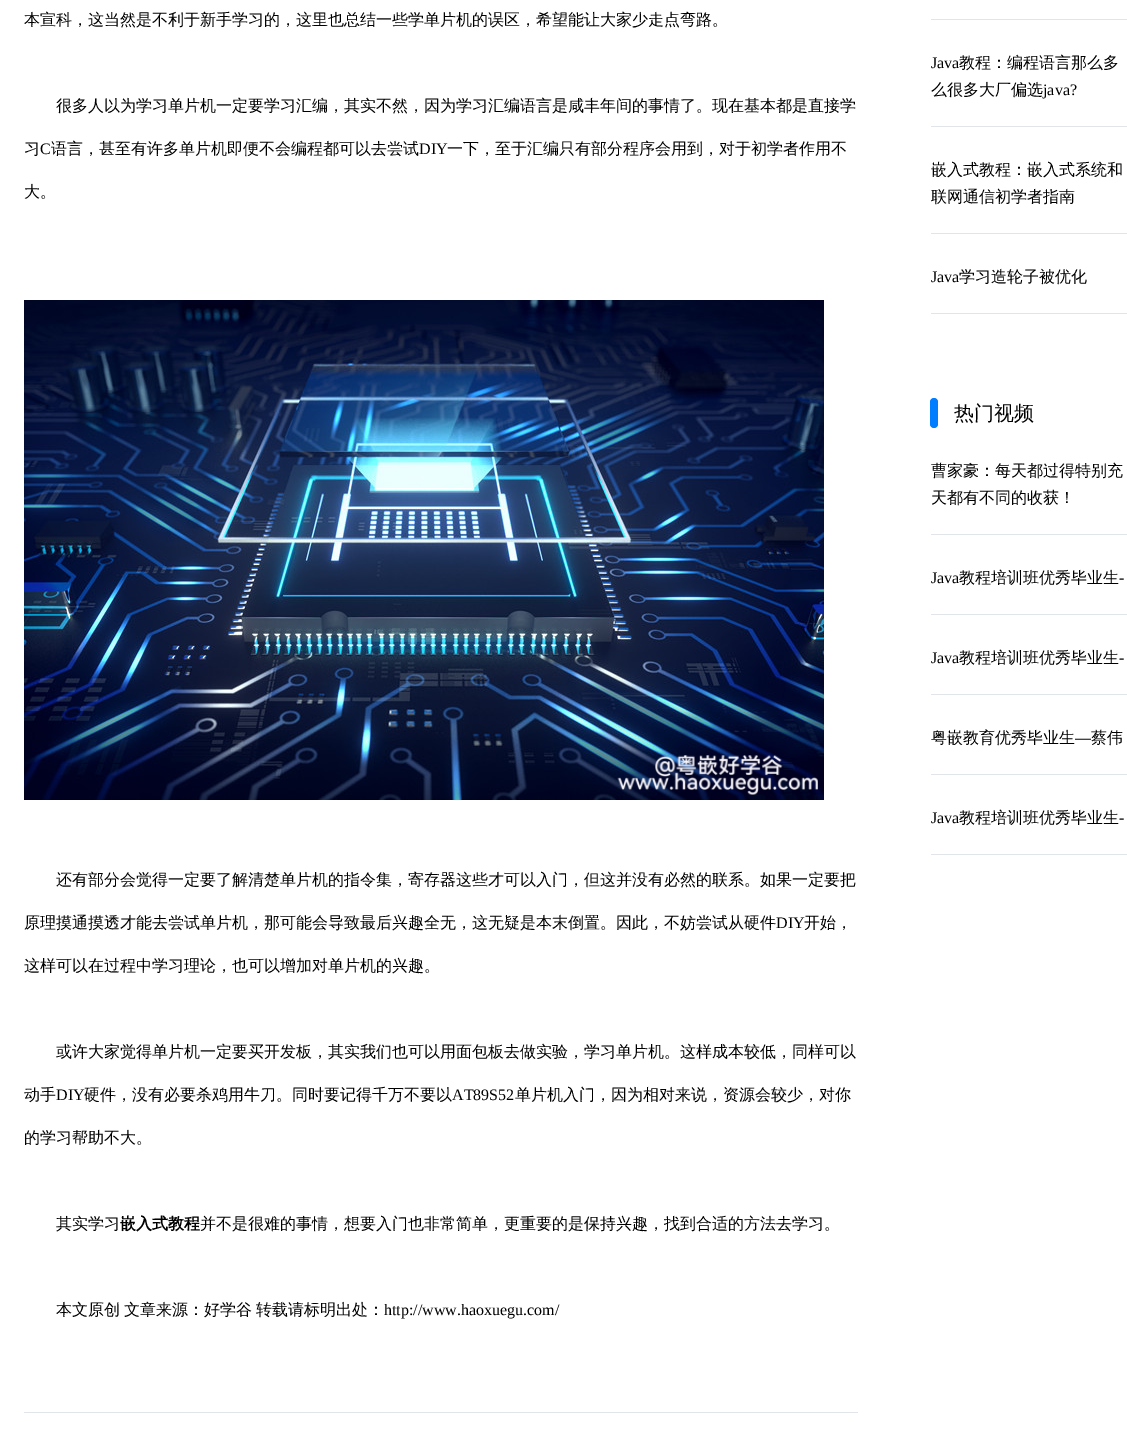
%!PS
<< /PageSize [1127 1438] >> setpagedevice
/rgb { 3 { 255 div 3 1 roll } repeat setrgbcolor } def
/font { [ exch dup neg 0 0 3 -1 roll 0 0 ] selectfont } def
/roundrect { 5 dict begin { /r /h /w /y /x } { exch def } forall
  x r add y moveto x w add y 2 copy h add r arct x w add y h add x 1 index r arct
  x y h add x y r arct x y 2 copy exch w add exch r arct closepath end } def
/picture { 5 dict begin { /h /w /y /x /name } { exch def } forall
  gsave x y translate w h scale
  w h 8 [w 0 0 h 0 0] name (r) file false 3 colorimage grestore end } def
0 1438 translate 1 -1 scale
4 setmiterlimit
255 255 255 rgb
0 0 1127 1438 rectfill
225 228 232 rgb
24 1412 834 1 rectfill
(img/1.rgb) 24 300 800 500 picture
[
  [931 19 196 1 225 228 232]
  [931 126 196 1 225 228 232]
  [931 233 196 1 225 228 232]
  [931 313 196 1 225 228 232]
] { aload pop rgb rectfill } forall
1 125 255 rgb
930 398 8 30 4 roundrect fill
[
  [931 534 196 1 225 228 232]
  [931 614 196 1 225 228 232]
  [931 694 196 1 225 228 232]
  [931 774 196 1 225 228 232]
  [931 854 196 1 225 228 232]
] { aload pop rgb rectfill } forall
/WenQuanYiZenHei-Medium 16 font
0 0 0 rgb
[
  [(本宣科，这当然是不利于新手学习的，这里也总结一些学单片机的误区，希望能让大家少走点弯路。) 24 25]
  [(很多人以为学习单片机一定要学习汇编，其实不然，因为学习汇编语言是咸丰年间的事情了。现在基本都是直接学) 56 111]
  [(习) 24 154]
] { aload pop moveto show } forall
/LiberationSerif-Regular 16 font
40 154 moveto (C) show
/WenQuanYiZenHei-Medium 16 font
51 154 moveto (语言，甚至有许多单片机即便不会编程都可以去尝试) show
/LiberationSerif-Regular 16 font
419 154 moveto (DIY) show
/WenQuanYiZenHei-Medium 16 font
[
  [(一下，至于汇编只有部分程序会用到，对于初学者作用不) 447 154]
  [(大。) 24 197]
  [(还有部分会觉得一定要了解清楚单片机的指令集，寄存器这些才可以入门，但这并没有必然的联系。如果一定要把) 56 885]
  [(原理摸通摸透才能去尝试单片机，那可能会导致最后兴趣全无，这无疑是本末倒置。因此，不妨尝试从硬件) 24 928]
] { aload pop moveto show } forall
/LiberationSerif-Regular 16 font
776 928 moveto (DIY) show
/WenQuanYiZenHei-Medium 16 font
[
  [(开始，) 804 928]
  [(这样可以在过程中学习理论，也可以增加对单片机的兴趣。) 24 971]
  [(或许大家觉得单片机一定要买开发板，其实我们也可以用面包板去做实验，学习单片机。这样成本较低，同样可以) 56 1057]
  [(动手) 24 1100]
] { aload pop moveto show } forall
/LiberationSerif-Regular 16 font
56 1100 moveto (DIY) show
/WenQuanYiZenHei-Medium 16 font
84 1100 moveto (硬件，没有必要杀鸡用牛刀。同时要记得千万不要以) show
/LiberationSerif-Regular 16 font
452 1100 moveto (AT89S52) show
/WenQuanYiZenHei-Medium 16 font
[
  [(单片机入门，因为相对来说，资源会较少，对你) 515 1100]
  [(的学习帮助不大。) 24 1143]
  [(其实学习) 56 1229]
] { aload pop moveto show } forall
/WenQuanYiZenHei-Bold 16 font
120 1229 moveto (嵌入式教程) show
/WenQuanYiZenHei-Medium 16 font
200 1229 moveto (并不是很难的事情，想要入门也非常简单，更重要的是保持兴趣，找到合适的方法去学习。) show
56 1315 moveto -1 0 32 (本文原创 文章来源：好学谷 转载请标明出处：) widthshow
/LiberationSerif-Regular 16 font
384 1315 moveto (http://www.haoxuegu.com/) show
931 68 moveto (Java) show
/WenQuanYiZenHei-Medium 16 font
959 68 moveto (教程：编程语言那么多) show
931 95 moveto (么很多大厂偏选) show
/LiberationSerif-Regular 16 font
1043 95 moveto (java?) show
/WenQuanYiZenHei-Medium 16 font
931 175 moveto (嵌入式教程：嵌入式系统和) show
931 202 moveto (联网通信初学者指南) show
/LiberationSerif-Regular 16 font
931 282 moveto (Java) show
/WenQuanYiZenHei-Medium 16 font
959 282 moveto (学习造轮子被优化) show
/WenQuanYiZenHei-Medium 20 font
954 420 moveto (热门视频) show
/WenQuanYiZenHei-Medium 16 font
931 476 moveto (曹家豪：每天都过得特别充) show
931 503 moveto (天都有不同的收获！) show
/LiberationSerif-Regular 16 font
931 583 moveto (Java) show
/WenQuanYiZenHei-Medium 16 font
959 583 moveto (教程培训班优秀毕业生) show
/LiberationSerif-Regular 16 font
1119 583 moveto (-) show
931 663 moveto (Java) show
/WenQuanYiZenHei-Medium 16 font
959 663 moveto (教程培训班优秀毕业生) show
/LiberationSerif-Regular 16 font
1119 663 moveto (-) show
/WenQuanYiZenHei-Medium 16 font
931 743 moveto (粤嵌教育优秀毕业生) show
/LiberationSerif-Regular 16 font
1075 743 moveto (—) show
/WenQuanYiZenHei-Medium 16 font
1091 743 moveto (蔡伟) show
/LiberationSerif-Regular 16 font
931 823 moveto (Java) show
/WenQuanYiZenHei-Medium 16 font
959 823 moveto (教程培训班优秀毕业生) show
/LiberationSerif-Regular 16 font
1119 823 moveto (-) show
showpage
